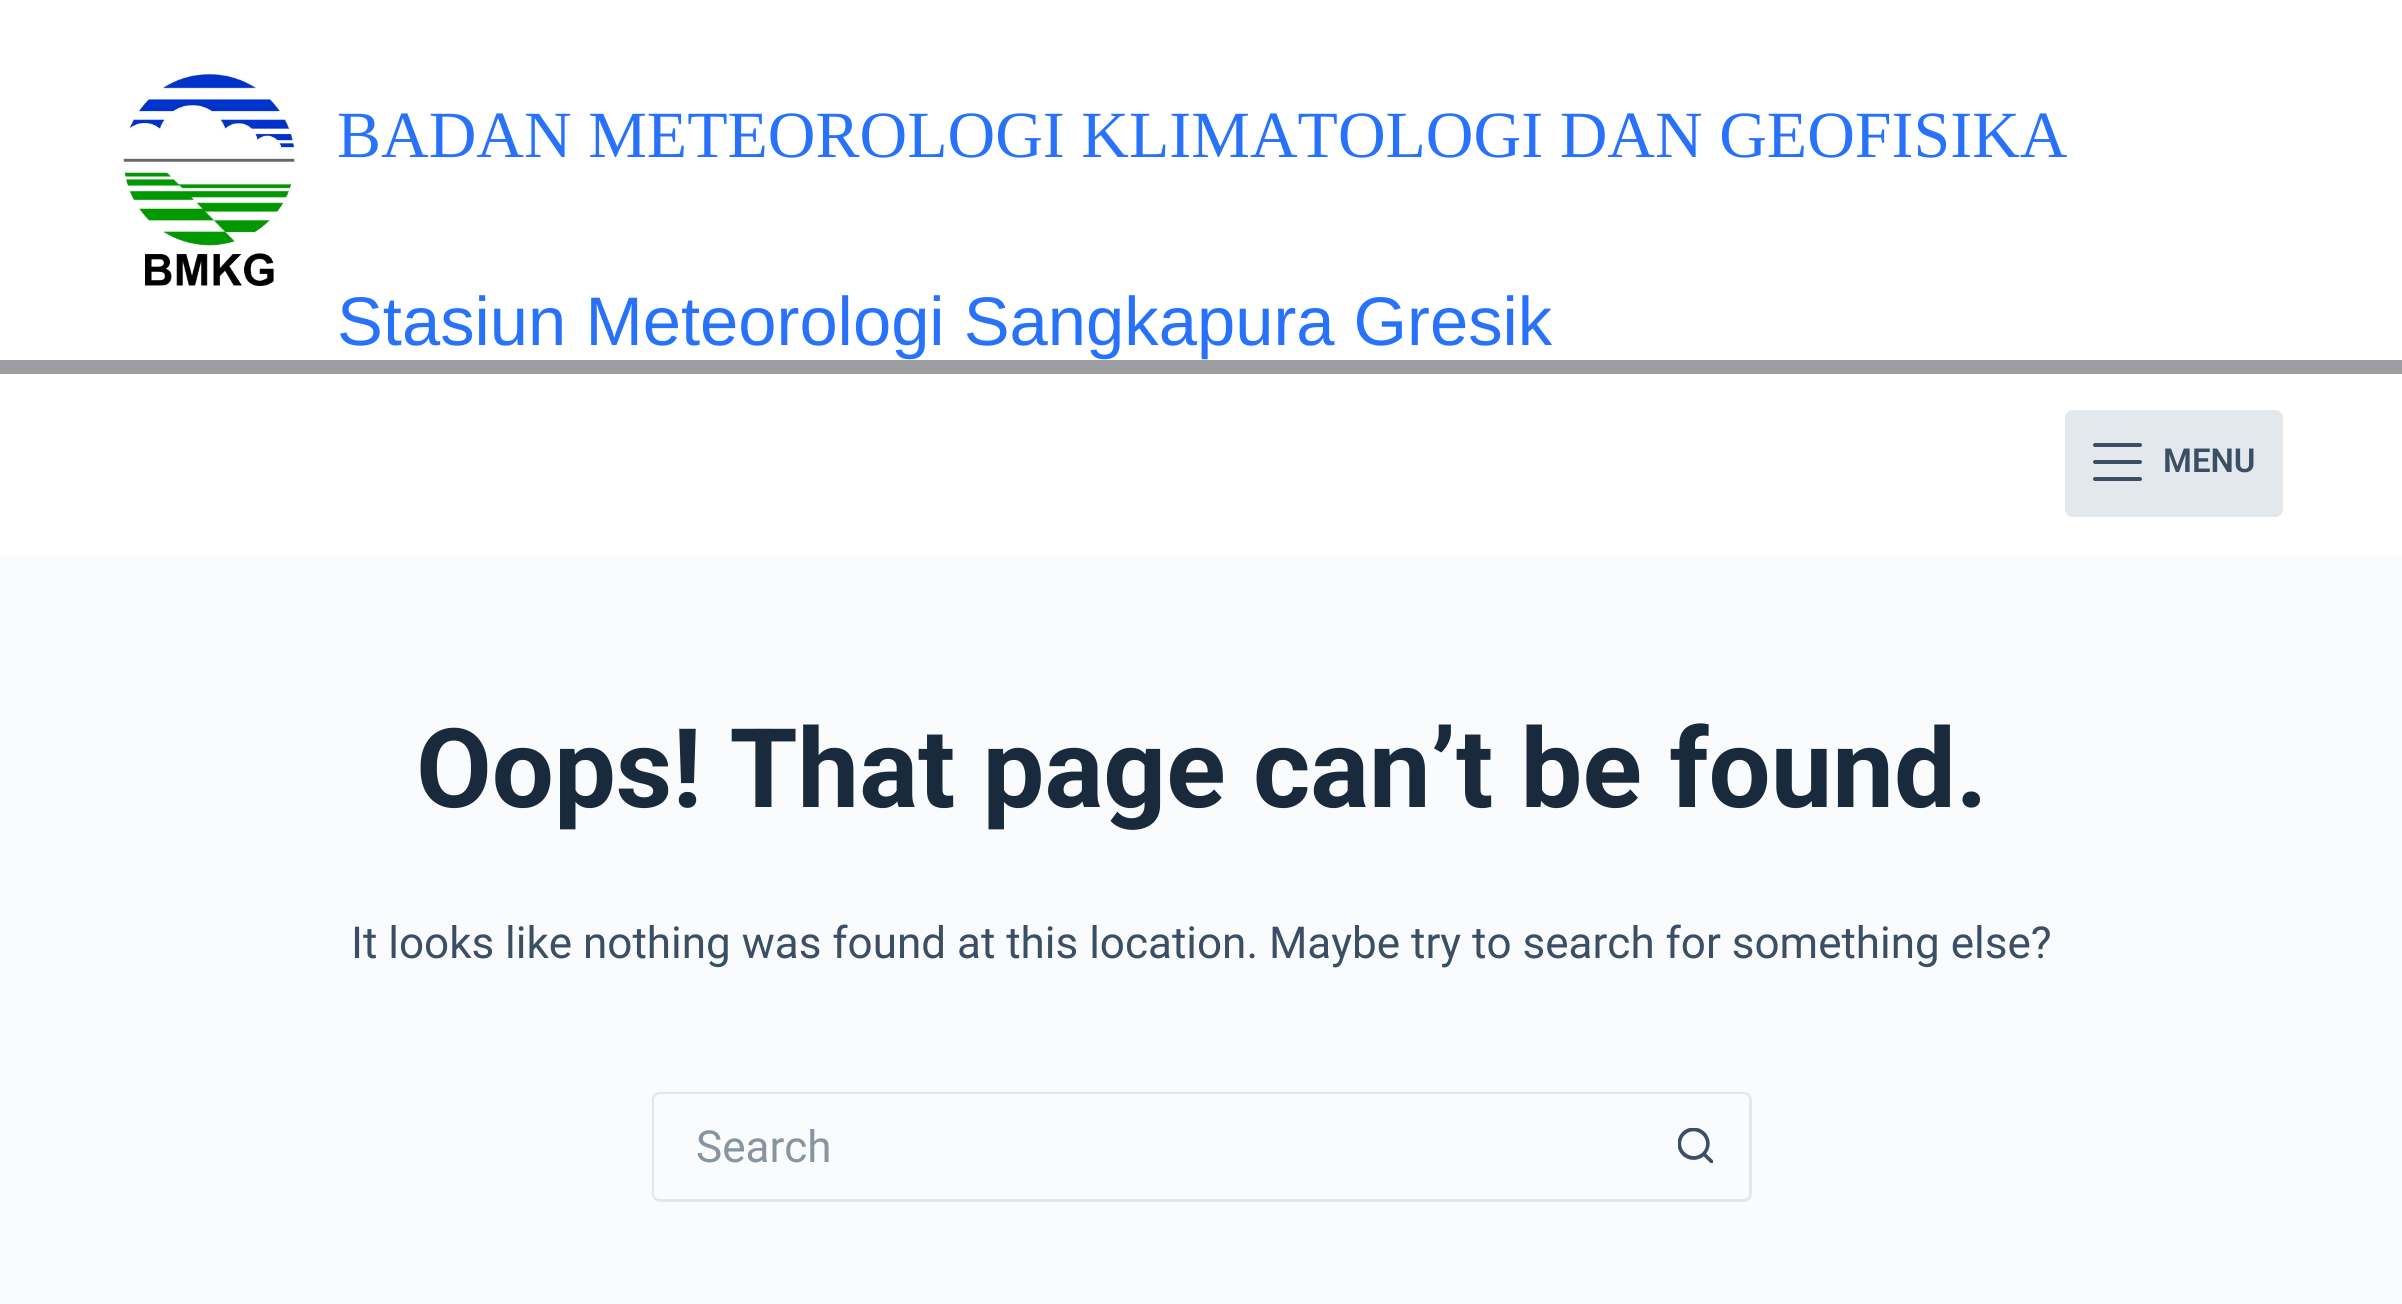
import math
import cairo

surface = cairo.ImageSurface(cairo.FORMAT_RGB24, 2402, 1304)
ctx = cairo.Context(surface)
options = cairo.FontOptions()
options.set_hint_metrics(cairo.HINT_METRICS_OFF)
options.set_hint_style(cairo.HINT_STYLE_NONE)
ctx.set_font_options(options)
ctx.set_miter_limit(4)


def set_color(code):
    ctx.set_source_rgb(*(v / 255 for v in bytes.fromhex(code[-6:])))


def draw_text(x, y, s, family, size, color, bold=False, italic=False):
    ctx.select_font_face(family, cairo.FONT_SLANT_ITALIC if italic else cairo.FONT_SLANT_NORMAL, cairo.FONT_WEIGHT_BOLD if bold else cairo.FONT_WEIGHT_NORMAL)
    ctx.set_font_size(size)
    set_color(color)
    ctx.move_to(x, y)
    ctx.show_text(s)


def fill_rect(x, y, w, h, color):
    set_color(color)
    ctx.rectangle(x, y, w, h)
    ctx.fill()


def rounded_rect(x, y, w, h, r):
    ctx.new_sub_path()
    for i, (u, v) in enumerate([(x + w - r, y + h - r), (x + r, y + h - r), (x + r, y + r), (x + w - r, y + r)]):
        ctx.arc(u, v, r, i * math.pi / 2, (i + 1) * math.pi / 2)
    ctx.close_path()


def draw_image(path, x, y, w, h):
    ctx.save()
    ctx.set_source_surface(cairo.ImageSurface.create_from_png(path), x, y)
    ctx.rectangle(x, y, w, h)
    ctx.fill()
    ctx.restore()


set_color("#fafbfc")
ctx.paint()
fill_rect(0, 0, 2402, 360, "#ffffff")
fill_rect(0, 360, 2402, 14, "#9d9ea1")
draw_image("assets/img1.png", 123, 74, 172, 212)
draw_text(337, 157, "BADAN METEOROLOGI KLIMATOLOGI DAN GEOFISIKA", "Liberation Serif", 66, "#2872fa")
draw_text(337, 345, "Stasiun Meteorologi Sangkapura Gresik", "Liberation Sans", 68.75, "#2872fa")
fill_rect(0, 374, 2402, 182, "#ffffff")
set_color("#e3e8ed")
rounded_rect(2065, 410, 218, 107, 8)
ctx.fill()
set_color("#3a4f66")
rounded_rect(2093, 443, 49, 4, 2)
ctx.fill()
rounded_rect(2093, 460, 49, 4, 2)
ctx.fill()
rounded_rect(2093, 477, 49, 4, 2)
ctx.fill()
draw_text(2163, 472, "MENU", "Roboto SemiBold", 33, "#3a4f66")
draw_text(416, 807, "Oops! That page can’t be found.", "Roboto", 110, "#192a3d", bold=True)
draw_text(351, 958, "It looks like nothing was found at this location. Maybe try to search for something else?", "Roboto", 44, "#3a4f66")
set_color("#e1e8ed")
ctx.set_fill_rule(cairo.FILL_RULE_EVEN_ODD)
ctx.new_path()
ctx.move_to(660, 1092)
ctx.line_to(1642, 1092)
ctx.line_to(1642, 1202)
ctx.line_to(660, 1202)
ctx.curve_to(655, 1202, 652, 1198, 652, 1194)
ctx.line_to(652, 1100)
ctx.curve_to(652, 1095, 655, 1092, 660, 1092)
ctx.close_path()
ctx.move_to(660, 1094)
ctx.line_to(1642, 1094)
ctx.line_to(1642, 1199)
ctx.line_to(660, 1199)
ctx.curve_to(657, 1199, 654, 1197, 654, 1194)
ctx.line_to(654, 1100)
ctx.curve_to(654, 1097, 657, 1094, 660, 1094)
ctx.close_path()
ctx.fill()
draw_text(696, 1162, "Search", "Roboto", 44, "#8794a2")
set_color("#e1e8ed")
ctx.new_path()
ctx.move_to(1642, 1092)
ctx.line_to(1744, 1092)
ctx.curve_to(1748, 1092, 1752, 1095, 1752, 1100)
ctx.line_to(1752, 1194)
ctx.curve_to(1752, 1198, 1748, 1202, 1744, 1202)
ctx.line_to(1642, 1202)
ctx.close_path()
ctx.move_to(1642, 1094)
ctx.line_to(1744, 1094)
ctx.curve_to(1747, 1094, 1749, 1097, 1749, 1100)
ctx.line_to(1749, 1194)
ctx.curve_to(1749, 1197, 1747, 1199, 1744, 1199)
ctx.line_to(1642, 1199)
ctx.close_path()
ctx.fill()
draw_image("assets/img2.png", 1678, 1128, 35, 35)
surface.write_to_png("output.png")
